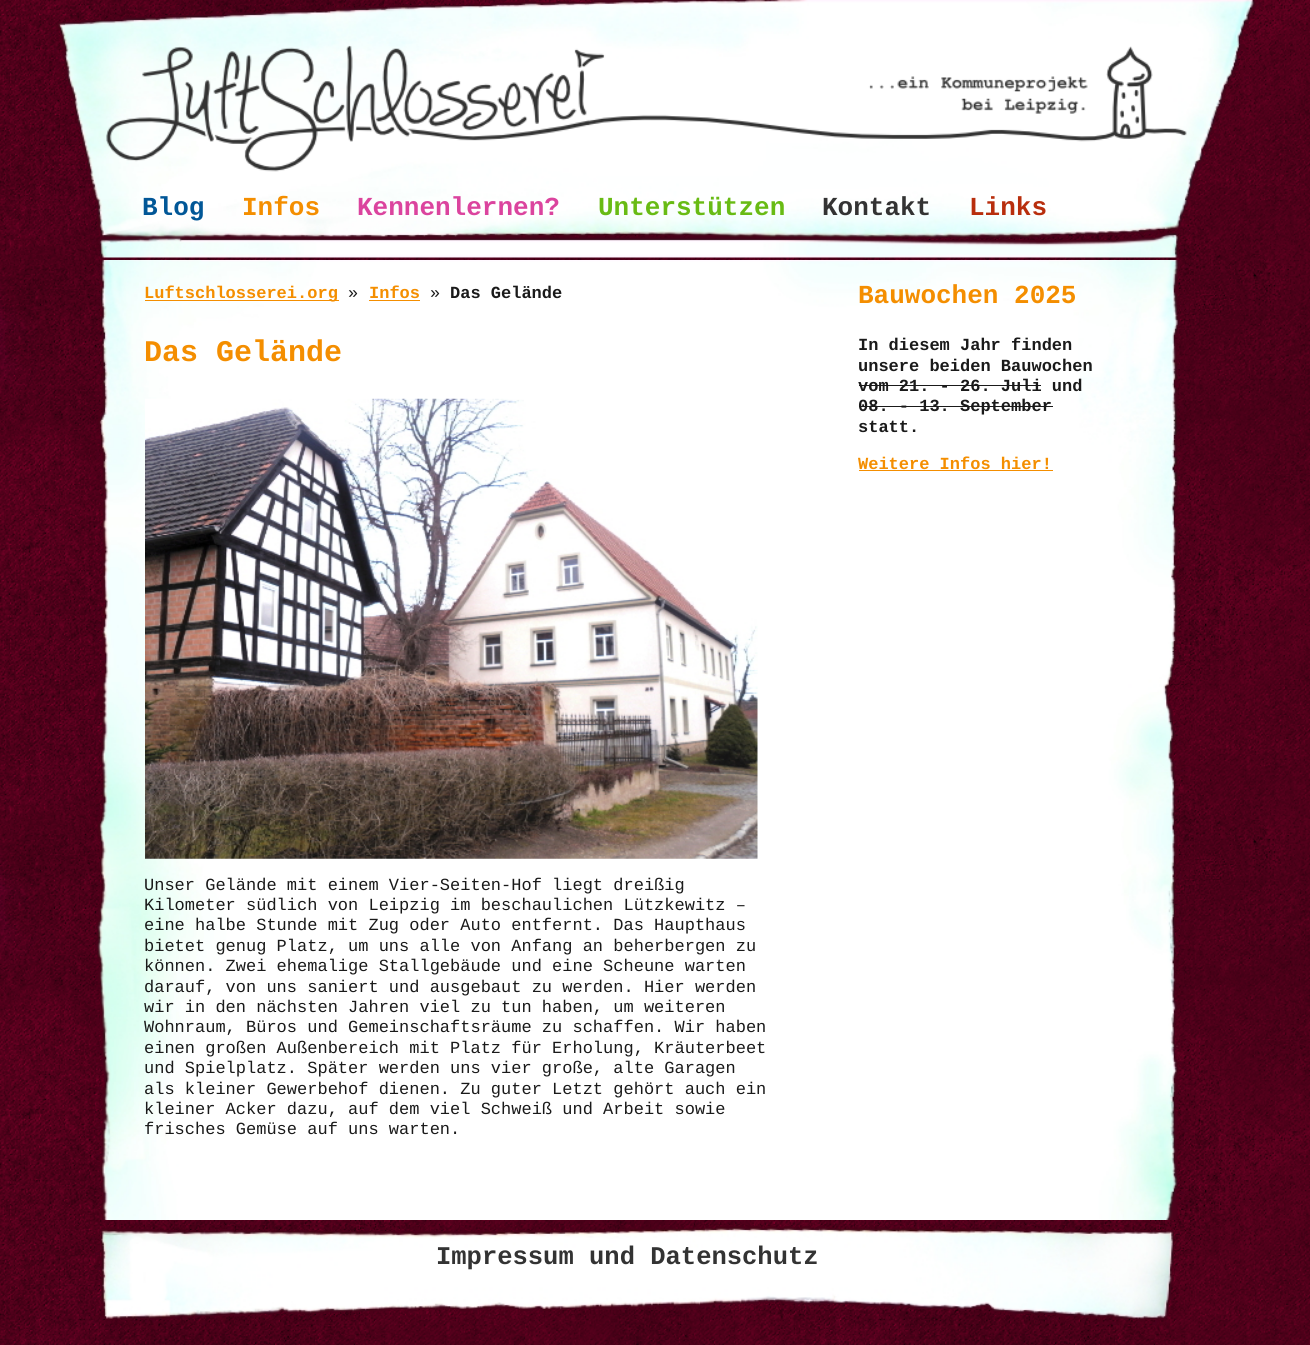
import math
import cairo

surface = cairo.ImageSurface(cairo.FORMAT_RGB24, 1310, 1345)
ctx = cairo.Context(surface)
options = cairo.FontOptions()
options.set_hint_metrics(cairo.HINT_METRICS_OFF)
options.set_hint_style(cairo.HINT_STYLE_NONE)
ctx.set_font_options(options)
ctx.set_miter_limit(4)


def set_color(code):
    ctx.set_source_rgb(*(v / 255 for v in bytes.fromhex(code[-6:])))


def draw_text(x, y, s, family, size, color, bold=False, italic=False):
    ctx.select_font_face(family, cairo.FONT_SLANT_ITALIC if italic else cairo.FONT_SLANT_NORMAL, cairo.FONT_WEIGHT_BOLD if bold else cairo.FONT_WEIGHT_NORMAL)
    ctx.set_font_size(size)
    set_color(color)
    ctx.move_to(x, y)
    ctx.show_text(s)


def fill_rect(x, y, w, h, color):
    set_color(color)
    ctx.rectangle(x, y, w, h)
    ctx.fill()


def draw_image(path, x, y, w, h):
    ctx.save()
    ctx.set_source_surface(cairo.ImageSurface.create_from_png(path), x, y)
    ctx.rectangle(x, y, w, h)
    ctx.fill()
    ctx.restore()


set_color("#ffffff")
ctx.paint()
draw_image("assets/img1.png", 0, 0, 1310, 1345)
draw_image("assets/img2.png", 49, 0, 1214, 258)
draw_text(142, 215, "Blog", "Liberation Mono", 26, "#015797", bold=True)
draw_text(242, 215, "Infos", "Liberation Mono", 26, "#f48e00", bold=True)
draw_text(357, 215, "Kennenlernen?", "Liberation Mono", 26, "#db449e", bold=True)
draw_text(598, 215, "Unterstützen", "Liberation Mono", 26, "#68bb14", bold=True)
draw_text(822, 215, "Kontakt", "Liberation Mono", 26, "#333333", bold=True)
draw_text(969, 215, "Links", "Liberation Mono", 26, "#b82e0d", bold=True)
draw_image("assets/img3.png", 96, 260, 1103, 960)
fill_rect(145, 300, 194, 1, "#f48e00")
draw_text(144, 298, "Luftschlosserei.org", "Liberation Mono", 17, "#f48e00", bold=True)
draw_text(348, 298, "»", "Liberation Mono", 17, "#1a1a1a")
draw_text(369, 298, "Infos", "Liberation Mono", 17, "#f48e00", bold=True)
fill_rect(369, 300, 51, 1, "#f48e00")
draw_text(430, 298, "»", "Liberation Mono", 17, "#1a1a1a")
draw_text(450, 298, "Das Gelände", "Liberation Mono", 17, "#1a1a1a", bold=True)
draw_text(144, 361, "Das Gelände", "Liberation Mono", 30, "#f48e00", bold=True)
draw_image("assets/img4.png", 145, 398, 613, 461)
draw_text(144, 890, "Unser Gelände mit einem Vier-Seiten-Hof liegt dreißig", "Liberation Mono", 17, "#1a1a1a")
draw_text(144, 910, "Kilometer südlich von Leipzig im beschaulichen Lützkewitz –", "Liberation Mono", 17, "#1a1a1a")
draw_text(144, 930, "eine halbe Stunde mit Zug oder Auto entfernt. Das Haupthaus", "Liberation Mono", 17, "#1a1a1a")
draw_text(144, 951, "bietet genug Platz, um uns alle von Anfang an beherbergen zu", "Liberation Mono", 17, "#1a1a1a")
draw_text(144, 971, "können. Zwei ehemalige Stallgebäude und eine Scheune warten", "Liberation Mono", 17, "#1a1a1a")
draw_text(144, 992, "darauf, von uns saniert und ausgebaut zu werden. Hier werden", "Liberation Mono", 17, "#1a1a1a")
draw_text(144, 1012, "wir in den nächsten Jahren viel zu tun haben, um weiteren", "Liberation Mono", 17, "#1a1a1a")
draw_text(144, 1032, "Wohnraum, Büros und Gemeinschaftsräume zu schaffen. Wir haben", "Liberation Mono", 17, "#1a1a1a")
draw_text(144, 1053, "einen großen Außenbereich mit Platz für Erholung, Kräuterbeet", "Liberation Mono", 17, "#1a1a1a")
draw_text(144, 1073, "und Spielplatz. Später werden uns vier große, alte Garagen", "Liberation Mono", 17, "#1a1a1a")
draw_text(144, 1094, "als kleiner Gewerbehof dienen. Zu guter Letzt gehört auch ein", "Liberation Mono", 17, "#1a1a1a")
draw_text(144, 1114, "kleiner Acker dazu, auf dem viel Schweiß und Arbeit sowie", "Liberation Mono", 17, "#1a1a1a")
draw_text(144, 1134, "frisches Gemüse auf uns warten.", "Liberation Mono", 17, "#1a1a1a")
draw_text(858, 303, "Bauwochen 2025", "Liberation Mono", 26, "#f48e00", bold=True)
draw_text(858, 350, "In diesem Jahr finden", "Liberation Mono", 17, "#1a1a1a", bold=True)
draw_text(858, 371, "unsere beiden Bauwochen", "Liberation Mono", 17, "#1a1a1a", bold=True)
draw_text(858, 391, "vom 21. - 26. Juli und", "Liberation Mono", 17, "#1a1a1a", bold=True)
fill_rect(859, 385, 182, 1, "#1a1a1a")
draw_text(858, 411, "08. - 13. September", "Liberation Mono", 17, "#1a1a1a", bold=True)
fill_rect(859, 406, 194, 1, "#1a1a1a")
draw_text(858, 432, "statt.", "Liberation Mono", 17, "#1a1a1a", bold=True)
draw_text(858, 469, "Weitere Infos hier!", "Liberation Mono", 17, "#f48e00", bold=True)
fill_rect(859, 470, 194, 1, "#f48e00")
draw_image("assets/img5.png", 92, 1226, 1082, 101)
draw_text(436, 1264, "Impressum und Datenschutz", "Liberation Mono", 25.5, "#333333", bold=True)
surface.write_to_png("output.png")
